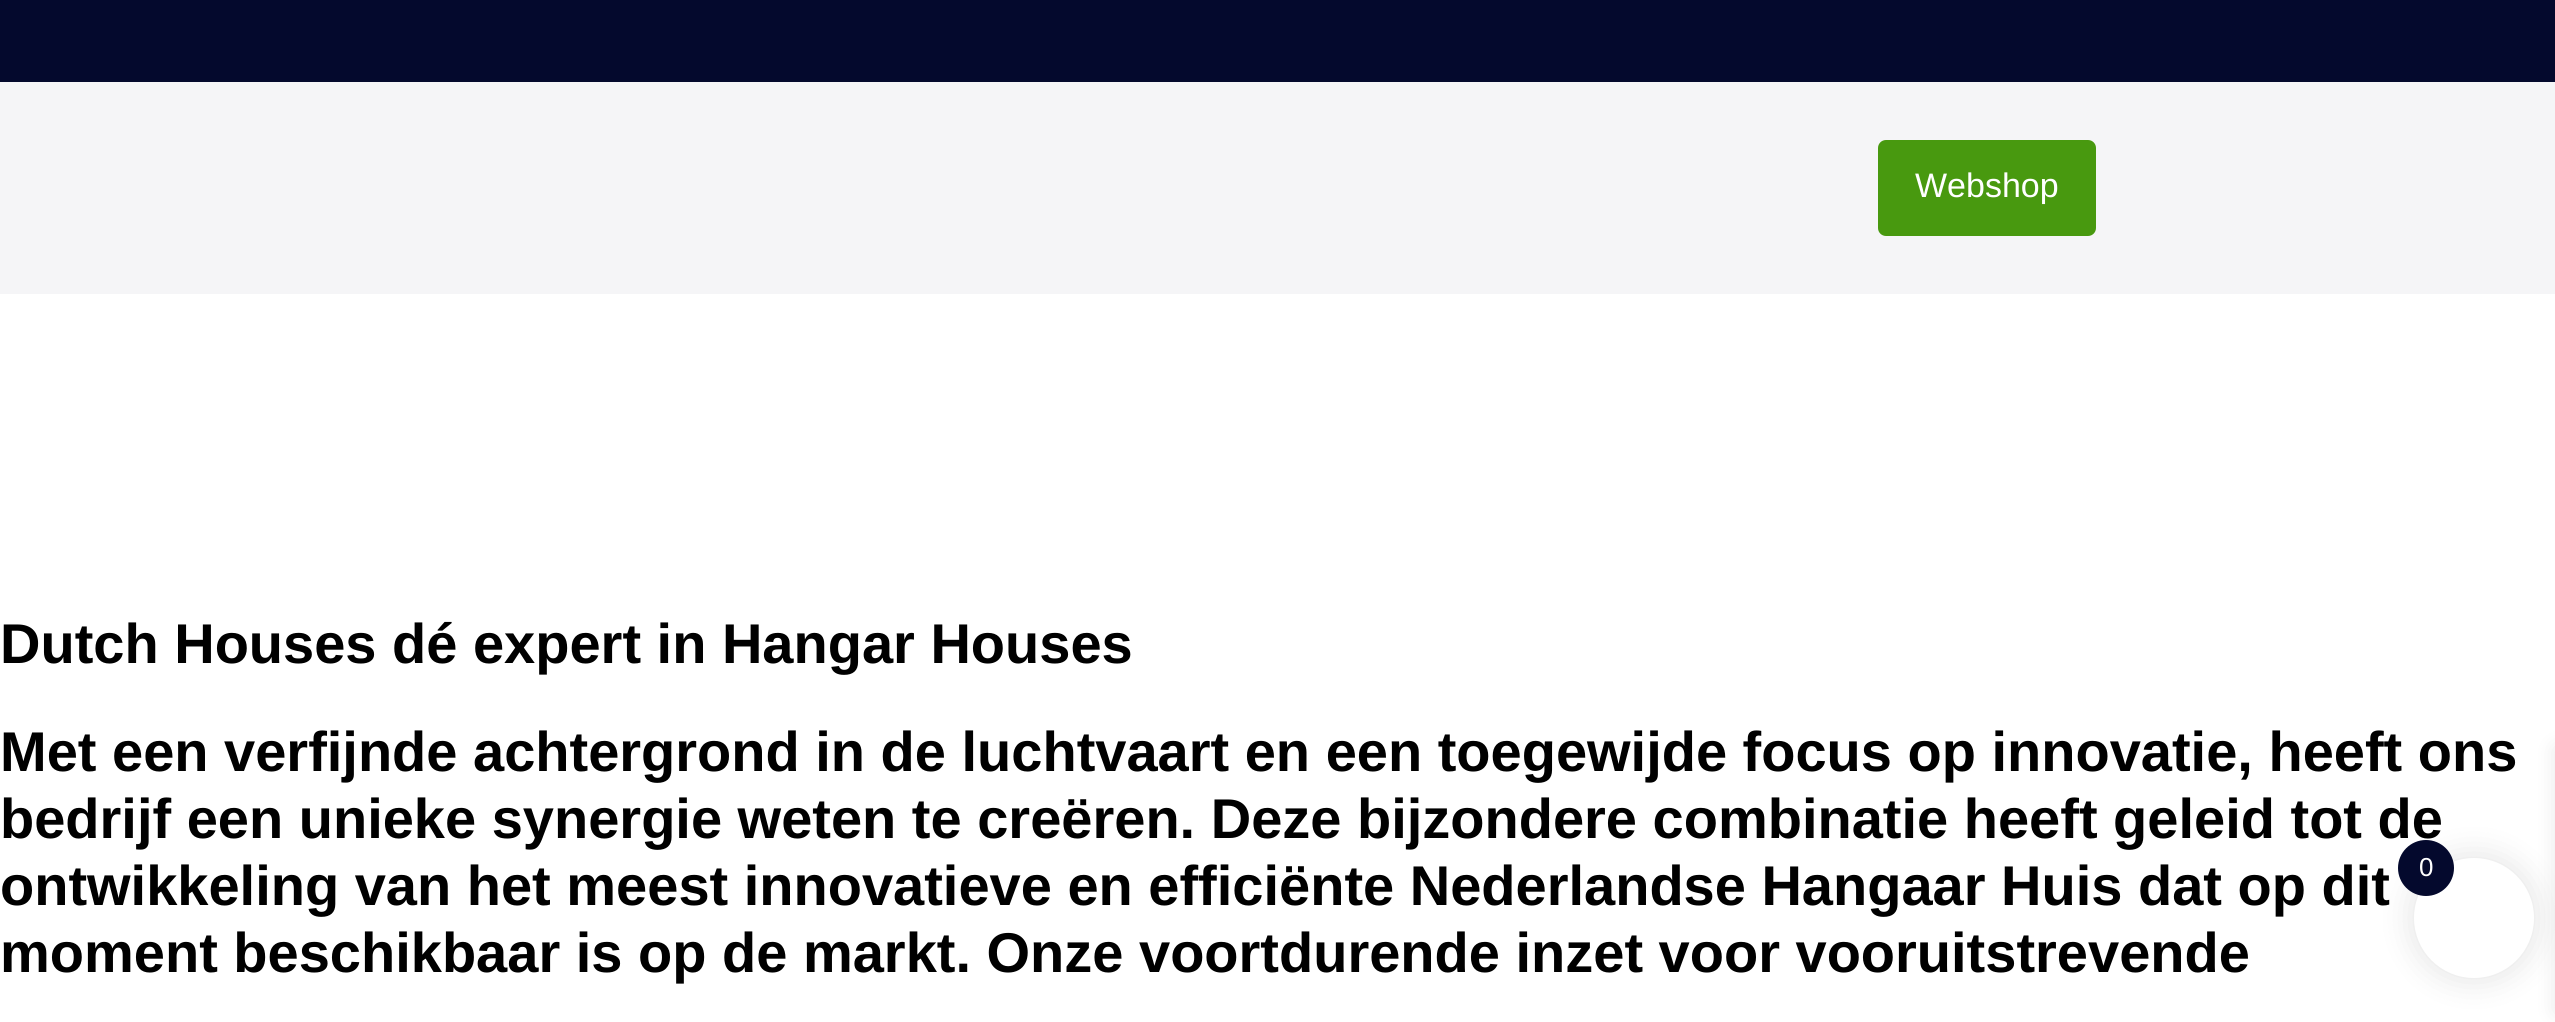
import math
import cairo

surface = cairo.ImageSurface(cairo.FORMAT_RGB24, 2555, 1022)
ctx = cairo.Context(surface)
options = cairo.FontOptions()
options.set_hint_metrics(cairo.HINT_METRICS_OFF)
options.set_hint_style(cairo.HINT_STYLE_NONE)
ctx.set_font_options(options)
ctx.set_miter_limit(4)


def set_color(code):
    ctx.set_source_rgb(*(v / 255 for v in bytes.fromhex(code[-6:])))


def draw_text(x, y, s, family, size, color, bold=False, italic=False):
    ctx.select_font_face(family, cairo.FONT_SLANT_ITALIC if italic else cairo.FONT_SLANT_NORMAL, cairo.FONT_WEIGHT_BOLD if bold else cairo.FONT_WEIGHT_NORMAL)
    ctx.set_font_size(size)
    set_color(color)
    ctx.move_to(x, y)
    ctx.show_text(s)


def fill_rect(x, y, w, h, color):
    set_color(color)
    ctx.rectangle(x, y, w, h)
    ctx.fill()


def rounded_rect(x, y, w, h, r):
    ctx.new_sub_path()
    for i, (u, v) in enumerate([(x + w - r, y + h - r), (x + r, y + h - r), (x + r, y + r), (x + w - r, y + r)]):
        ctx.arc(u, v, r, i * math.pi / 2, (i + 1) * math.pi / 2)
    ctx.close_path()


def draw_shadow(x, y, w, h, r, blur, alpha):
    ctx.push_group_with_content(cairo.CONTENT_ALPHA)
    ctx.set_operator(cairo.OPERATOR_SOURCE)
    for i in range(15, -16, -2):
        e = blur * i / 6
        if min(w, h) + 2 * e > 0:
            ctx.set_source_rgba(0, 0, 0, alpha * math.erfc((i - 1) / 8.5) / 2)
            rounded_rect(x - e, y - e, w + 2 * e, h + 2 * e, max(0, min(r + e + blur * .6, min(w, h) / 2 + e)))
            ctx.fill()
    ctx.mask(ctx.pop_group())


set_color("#ffffff")
ctx.paint()
fill_rect(0, 0, 2555, 82, "#04092d")
fill_rect(0, 82, 2555, 212, "#f5f5f7")
set_color("#48990f")
rounded_rect(1878, 140, 218, 96, 8)
ctx.fill()
draw_text(1915, 197, "Webshop", "Liberation Sans", 34, "#ffffff")
draw_text(0, 663, "Dutch Houses dé expert in Hangar Houses", "Liberation Sans", 56, "#000000", bold=True)
draw_text(0, 771, "Met een verfijnde achtergrond in de luchtvaart en een toegewijde focus op innovatie, heeft ons", "Liberation Sans", 56, "#000000", bold=True)
draw_text(0, 838, "bedrijf een unieke synergie weten te creëren. Deze bijzondere combinatie heeft geleid tot de", "Liberation Sans", 56, "#000000", bold=True)
draw_text(0, 905, "ontwikkeling van het meest innovatieve en efficiënte Nederlandse Hangaar Huis dat op dit", "Liberation Sans", 56, "#000000", bold=True)
draw_text(0, 972, "moment beschikbaar is op de markt. Onze voortdurende inzet voor vooruitstrevende", "Liberation Sans", 56, "#000000", bold=True)
set_color("#000000")
draw_shadow(2410, 854, 128, 128, 64, 15, 0.1)
draw_shadow(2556, 748, 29, 264, 0, 10, 0.1)
set_color("#ffffff")
ctx.arc(2474, 918, 60, 0, 2 * math.pi)
ctx.fill()
set_color("#04092d")
ctx.arc(2426, 868, 28, 0, 2 * math.pi)
ctx.fill()
draw_text(2419, 876, "0", "Liberation Sans", 26, "#ffffff")
surface.write_to_png("output.png")
